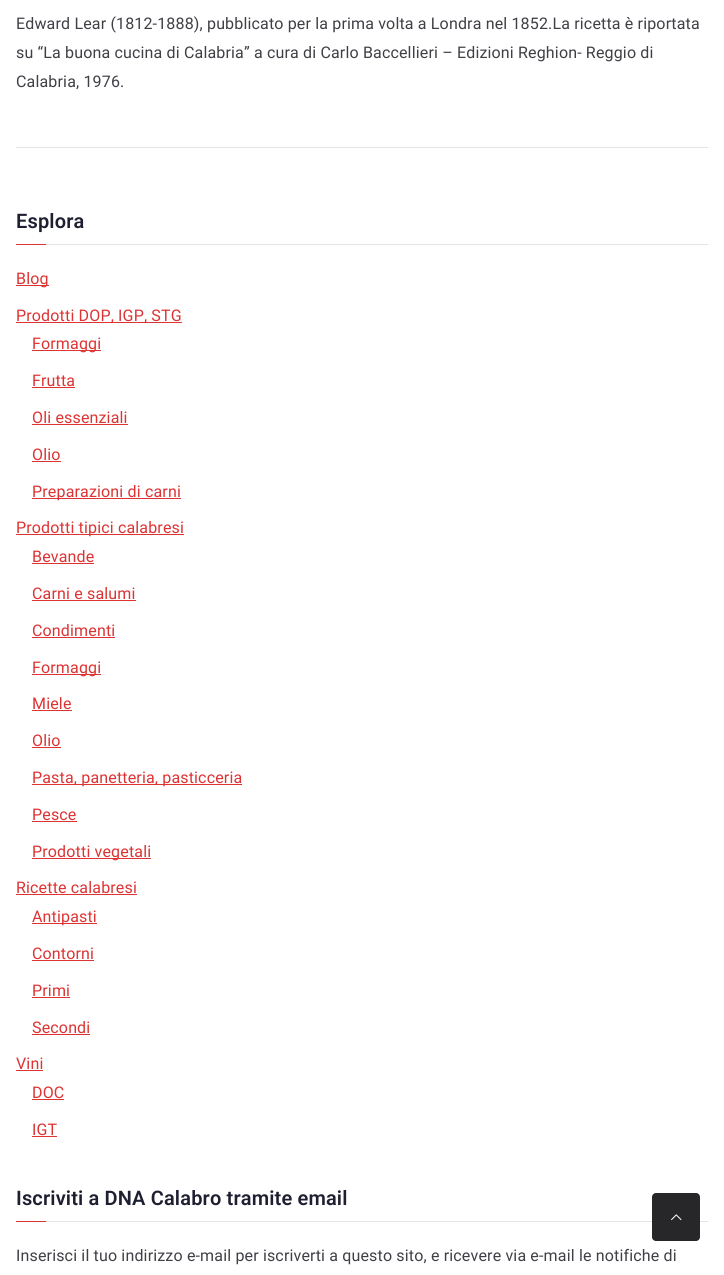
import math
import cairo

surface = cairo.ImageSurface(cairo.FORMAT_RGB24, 724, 1275)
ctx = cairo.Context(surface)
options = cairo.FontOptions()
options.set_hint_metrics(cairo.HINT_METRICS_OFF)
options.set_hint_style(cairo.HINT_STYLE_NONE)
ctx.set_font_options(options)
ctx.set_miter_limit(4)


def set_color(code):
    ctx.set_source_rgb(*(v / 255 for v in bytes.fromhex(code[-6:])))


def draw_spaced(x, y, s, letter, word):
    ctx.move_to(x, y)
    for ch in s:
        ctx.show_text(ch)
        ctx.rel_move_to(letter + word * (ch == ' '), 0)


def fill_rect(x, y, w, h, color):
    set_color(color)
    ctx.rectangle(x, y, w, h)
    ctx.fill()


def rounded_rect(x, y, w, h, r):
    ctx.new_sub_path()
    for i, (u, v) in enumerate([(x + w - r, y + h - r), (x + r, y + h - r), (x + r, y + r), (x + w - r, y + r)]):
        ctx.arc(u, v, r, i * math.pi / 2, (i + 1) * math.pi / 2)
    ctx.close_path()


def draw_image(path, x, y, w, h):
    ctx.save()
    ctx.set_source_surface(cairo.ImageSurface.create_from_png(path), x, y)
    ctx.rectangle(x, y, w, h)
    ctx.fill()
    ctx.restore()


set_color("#ffffff")
ctx.paint()
fill_rect(16, 147, 692, 1, "#e4e4e7")
ctx.select_font_face("Roboto")
ctx.set_font_size(16)
set_color("#3f3f46")
draw_spaced(16, 29, "Edward Lear (1812-1888), pubblicato per la prima volta a Londra nel 1852.La ricetta è riportata", 0.16, 0)
draw_spaced(16, 58, "su “La buona cucina di Calabria” a cura di Carlo Baccellieri – Edizioni Reghion- Reggio di", 0.16, 0)
draw_spaced(16, 87, "Calabria, 1976.", 0.16, 0)
fill_rect(46, 244, 662, 1, "#e4e4e7")
ctx.select_font_face("Roboto SemiBold")
ctx.set_font_size(20)
set_color("#1f1f32")
draw_spaced(16, 228, "Esplora", 0.16, 0)
fill_rect(16, 244, 30, 1, "#dd3333")
fill_rect(16, 285, 33, 1, "#dd3333")
ctx.select_font_face("Roboto")
ctx.set_font_size(16)
draw_spaced(16, 284, "Blog", 0.16, 0)
fill_rect(16, 322, 166, 1, "#dd3333")
draw_spaced(16, 321, "Prodotti DOP, IGP, STG", 0.16, 0)
fill_rect(32, 350, 69, 1, "#dd3333")
draw_spaced(32, 349, "Formaggi", 0.16, 0)
draw_spaced(32, 386, "Frutta", 0.16, 0)
fill_rect(32, 387, 43, 1, "#dd3333")
draw_spaced(32, 423, "Oli essenziali", 0.16, 0)
fill_rect(32, 424, 96, 1, "#dd3333")
draw_spaced(32, 460, "Olio", 0.16, 0)
fill_rect(32, 461, 29, 1, "#dd3333")
fill_rect(32, 498, 149, 1, "#dd3333")
draw_spaced(32, 497, "Preparazioni di carni", 0.16, 0)
fill_rect(16, 534, 168, 1, "#dd3333")
draw_spaced(16, 533, "Prodotti tipici calabresi", 0.16, 0)
draw_spaced(32, 562, "Bevande", 0.16, 0)
fill_rect(32, 563, 62, 1, "#dd3333")
draw_spaced(32, 599, "Carni e salumi", 0.16, 0)
fill_rect(32, 600, 104, 1, "#dd3333")
draw_spaced(32, 636, "Condimenti", 0.16, 0)
fill_rect(32, 637, 83, 1, "#dd3333")
fill_rect(32, 674, 69, 1, "#dd3333")
draw_spaced(32, 673, "Formaggi", 0.16, 0)
draw_spaced(32, 709, "Miele", 0.16, 0)
fill_rect(32, 710, 40, 1, "#dd3333")
draw_spaced(32, 746, "Olio", 0.16, 0)
fill_rect(32, 747, 29, 1, "#dd3333")
fill_rect(32, 784, 210, 1, "#dd3333")
draw_spaced(32, 783, "Pasta, panetteria, pasticceria", 0.16, 0)
draw_spaced(32, 820, "Pesce", 0.16, 0)
fill_rect(32, 821, 45, 1, "#dd3333")
fill_rect(32, 858, 119, 1, "#dd3333")
draw_spaced(32, 857, "Prodotti vegetali", 0.16, 0)
draw_spaced(16, 893, "Ricette calabresi", 0.16, 0)
fill_rect(16, 894, 121, 1, "#dd3333")
fill_rect(32, 923, 65, 1, "#dd3333")
draw_spaced(32, 922, "Antipasti", 0.16, 0)
draw_spaced(32, 959, "Contorni", 0.16, 0)
fill_rect(32, 960, 62, 1, "#dd3333")
draw_spaced(32, 996, "Primi", 0.16, 0)
fill_rect(32, 997, 38, 1, "#dd3333")
draw_spaced(32, 1033, "Secondi", 0.16, 0)
fill_rect(32, 1034, 58, 1, "#dd3333")
draw_spaced(16, 1069, "Vini", 0.16, 0)
fill_rect(16, 1070, 27, 1, "#dd3333")
draw_spaced(32, 1098, "DOC", 0.16, 0)
fill_rect(32, 1099, 32, 1, "#dd3333")
draw_spaced(32, 1135, "IGT", 0.16, 0)
fill_rect(32, 1136, 25, 1, "#dd3333")
fill_rect(46, 1221, 662, 1, "#e4e4e7")
ctx.select_font_face("Roboto SemiBold")
ctx.set_font_size(20)
set_color("#1f1f32")
draw_spaced(16, 1205, "Iscriviti a DNA Calabro tramite email", 0.16, 0)
fill_rect(16, 1221, 30, 1, "#dd3333")
ctx.select_font_face("Roboto")
ctx.set_font_size(16)
set_color("#3f3f46")
draw_spaced(16, 1261, "Inserisci il tuo indirizzo e-mail per iscriverti a questo sito, e ricevere via e-mail le notifiche di", 0.16, 0)
set_color("#27272a")
rounded_rect(652, 1193, 48, 48, 4)
ctx.fill()
draw_image("assets/img1.png", 671, 1214, 11, 7)
surface.write_to_png("output.png")
